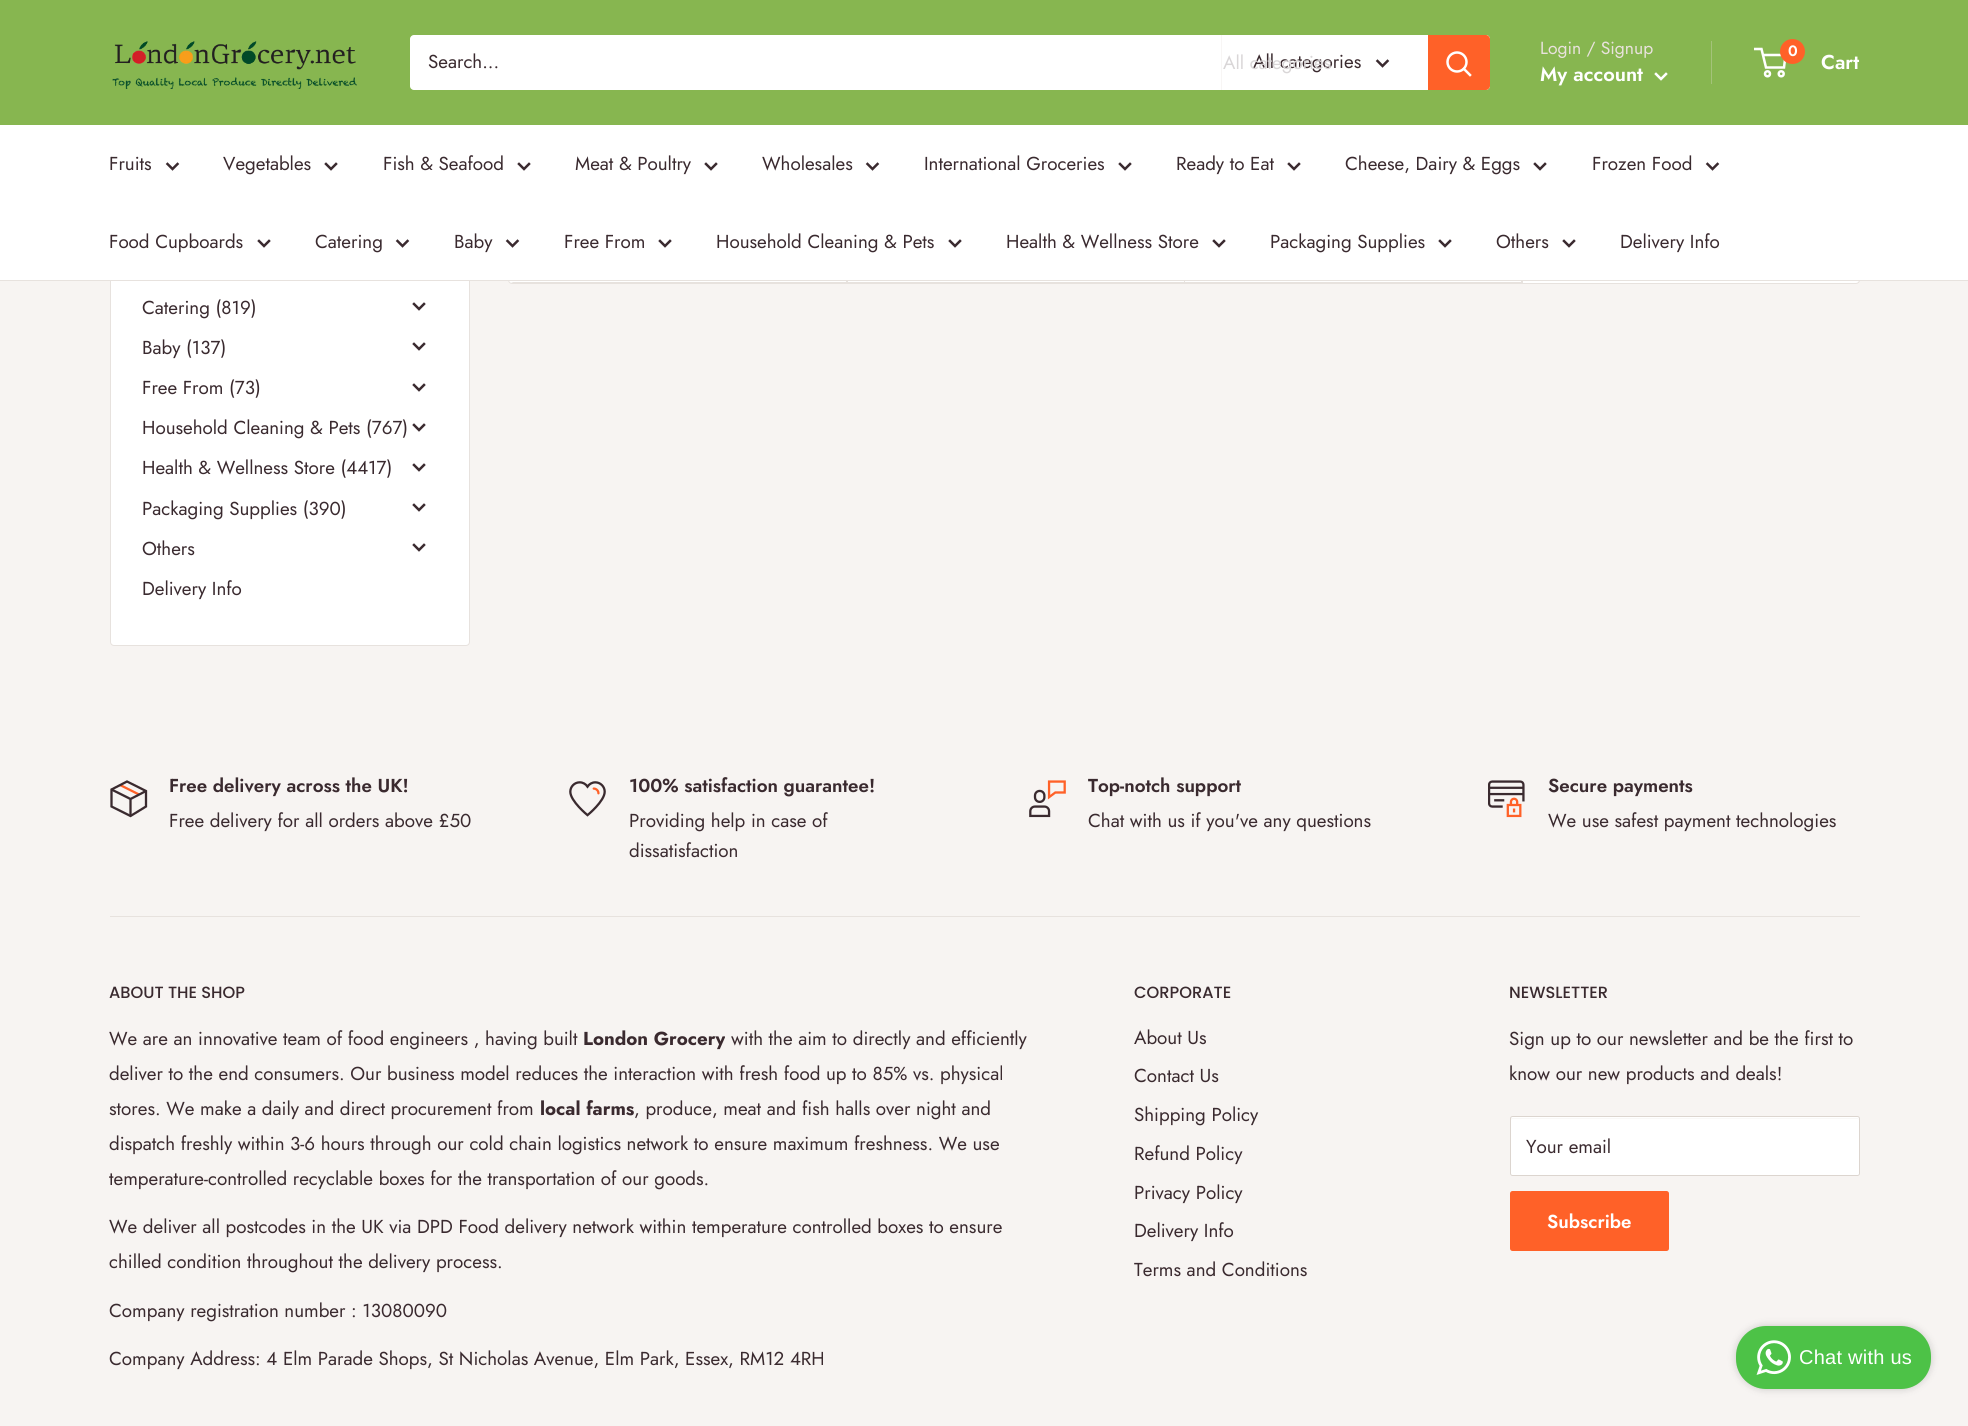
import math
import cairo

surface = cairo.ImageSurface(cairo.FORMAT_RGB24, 1968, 1426)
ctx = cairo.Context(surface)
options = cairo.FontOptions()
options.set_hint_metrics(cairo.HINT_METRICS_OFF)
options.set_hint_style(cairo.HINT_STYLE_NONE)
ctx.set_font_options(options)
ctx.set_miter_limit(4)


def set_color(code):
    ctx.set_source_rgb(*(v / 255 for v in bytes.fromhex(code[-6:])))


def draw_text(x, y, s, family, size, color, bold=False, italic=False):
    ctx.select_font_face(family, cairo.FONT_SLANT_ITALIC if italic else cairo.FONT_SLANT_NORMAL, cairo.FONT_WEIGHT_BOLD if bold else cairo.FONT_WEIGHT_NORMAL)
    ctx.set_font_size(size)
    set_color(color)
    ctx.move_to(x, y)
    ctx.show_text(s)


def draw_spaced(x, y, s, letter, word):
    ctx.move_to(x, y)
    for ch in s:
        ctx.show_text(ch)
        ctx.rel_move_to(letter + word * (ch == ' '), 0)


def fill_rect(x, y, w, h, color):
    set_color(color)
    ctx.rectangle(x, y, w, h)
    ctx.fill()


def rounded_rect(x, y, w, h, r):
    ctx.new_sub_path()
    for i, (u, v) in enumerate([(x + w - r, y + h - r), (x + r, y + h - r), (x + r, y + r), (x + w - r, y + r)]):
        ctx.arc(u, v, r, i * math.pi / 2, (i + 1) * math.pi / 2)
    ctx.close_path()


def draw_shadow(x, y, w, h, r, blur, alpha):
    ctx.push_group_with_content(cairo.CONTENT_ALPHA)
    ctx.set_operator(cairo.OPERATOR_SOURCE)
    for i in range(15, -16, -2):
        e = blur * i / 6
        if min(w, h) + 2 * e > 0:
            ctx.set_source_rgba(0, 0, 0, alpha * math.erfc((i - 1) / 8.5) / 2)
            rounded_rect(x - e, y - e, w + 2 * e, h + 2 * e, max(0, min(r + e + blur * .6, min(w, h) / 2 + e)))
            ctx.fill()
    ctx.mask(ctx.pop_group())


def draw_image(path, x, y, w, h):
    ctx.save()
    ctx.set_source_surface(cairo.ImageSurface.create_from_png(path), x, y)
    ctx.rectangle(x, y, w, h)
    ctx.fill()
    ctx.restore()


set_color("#f7f4f2")
ctx.paint()
set_color("#ffffff")
rounded_rect(508.5, -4.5, 1351, 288, 3.5)
ctx.fill_preserve()
set_color("#e7e2de")
ctx.set_line_width(1)
ctx.stroke()
ctx.new_path()
ctx.move_to(513, -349)
ctx.line_to(848, -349)
ctx.line_to(848, 283)
ctx.line_to(513, 283)
ctx.line_to(511, 282)
ctx.line_to(846, 282)
ctx.line_to(846, -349)
ctx.line_to(512, -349)
ctx.close_path()
ctx.fill()
ctx.new_path()
ctx.move_to(846, -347)
ctx.line_to(846, 283)
ctx.line_to(1184, 283)
ctx.line_to(1184, -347)
ctx.line_to(1184, 282)
ctx.line_to(846, 282)
ctx.close_path()
ctx.fill()
ctx.new_path()
ctx.move_to(848, -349)
ctx.line_to(1185, -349)
ctx.line_to(1185, 283)
ctx.line_to(848, 283)
ctx.line_to(848, 282)
ctx.line_to(1184, 282)
ctx.line_to(1184, -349)
ctx.close_path()
ctx.fill()
ctx.new_path()
ctx.move_to(1185, -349)
ctx.line_to(1523, -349)
ctx.line_to(1523, 283)
ctx.line_to(1185, 283)
ctx.line_to(1185, 282)
ctx.line_to(1521, 282)
ctx.line_to(1521, -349)
ctx.close_path()
ctx.fill()
set_color("#ffffff")
rounded_rect(110.5, -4.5, 359, 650, 3.5)
ctx.fill_preserve()
set_color("#e7e2de")
ctx.stroke()
fill_rect(0, 0, 1968, 125, "#87b650")
draw_image("assets/img1.png", 112, 41, 245, 48)
set_color("#ffffff")
rounded_rect(410, 35, 1080, 55, 4)
ctx.fill()
draw_text(428, 68, "Search...", "Jost", 18.75, "#3a2a2f")
fill_rect(1221, 35, 1, 55, "#f8f6f5")
draw_text(1253, 68, "All categories", "Jost", 18.75, "#3a2a2f")
ctx.new_path()
ctx.move_to(1387.5, 61)
ctx.line_to(1382.5, 66)
ctx.line_to(1377.5, 61)
ctx.set_line_width(2.5)
ctx.set_line_cap(cairo.LINE_CAP_SQUARE)
ctx.stroke()
draw_text(1223, 69, "All categories", "Jost", 18.75, "#d9d6d7")
set_color("#ff6128")
ctx.new_path()
ctx.move_to(1428, 35)
ctx.line_to(1486, 35)
ctx.curve_to(1488, 35, 1490, 37, 1490, 39)
ctx.line_to(1490, 86)
ctx.curve_to(1490, 88, 1488, 90, 1486, 90)
ctx.line_to(1428, 90)
ctx.close_path()
ctx.fill()
ctx.new_path()
ctx.move_to(1470, 75)
ctx.line_to(1464, 69)
set_color("#ffffff")
ctx.stroke()
ctx.arc(1457, 62, 9.5, 0, 2 * math.pi)
ctx.set_line_cap(cairo.LINE_CAP_BUTT)
ctx.stroke()
draw_text(1540, 54, "Login / Signup", "Jost", 17.5, "#e9e2dd")
fill_rect(1711, 41, 1, 43, "#a4c37a")
draw_text(1540, 81, "My account", "Jost SemiBold", 20, "#ffffff")
ctx.new_path()
ctx.move_to(1666, 74)
ctx.line_to(1661, 79)
ctx.line_to(1656, 74)
ctx.set_line_cap(cairo.LINE_CAP_SQUARE)
ctx.stroke()
ctx.arc(1767.5, 73.8, 2.5, 0, 2 * math.pi)
ctx.set_line_cap(cairo.LINE_CAP_BUTT)
ctx.stroke()
ctx.arc(1781.2, 73.8, 2.5, 0, 2 * math.pi)
ctx.stroke()
ctx.new_path()
ctx.move_to(1763, 55)
ctx.line_to(1785.5, 55)
ctx.line_to(1784, 67.5)
ctx.line_to(1766, 67.5)
ctx.line_to(1761.5, 49)
ctx.line_to(1754, 49)
ctx.stroke()
set_color("#ff6128")
ctx.arc(1792.5, 51.5, 12.5, 0, 2 * math.pi)
ctx.fill()
draw_text(1788, 56, "0", "Jost SemiBold", 15, "#ffffff")
draw_text(1821, 69, "Cart", "Jost SemiBold", 20, "#ffffff")
fill_rect(0, 125, 1968, 155, "#ffffff")
fill_rect(0, 280, 1968, 1, "#e7e2de")
draw_text(109, 170, "Fruits", "Jost", 18.75, "#3a2a2f")
ctx.new_path()
ctx.move_to(177.5, 164)
ctx.line_to(172.5, 169)
ctx.line_to(167.5, 164)
ctx.set_line_cap(cairo.LINE_CAP_SQUARE)
ctx.stroke()
draw_text(223, 170, "Vegetables", "Jost", 18.75, "#3a2a2f")
ctx.new_path()
ctx.move_to(336, 164)
ctx.line_to(331, 169)
ctx.line_to(326, 164)
ctx.stroke()
draw_text(383, 170, "Fish & Seafood", "Jost", 18.75, "#3a2a2f")
ctx.new_path()
ctx.move_to(529, 164)
ctx.line_to(524, 169)
ctx.line_to(519, 164)
ctx.stroke()
draw_text(575, 170, "Meat & Poultry", "Jost", 18.75, "#3a2a2f")
ctx.new_path()
ctx.move_to(716, 164)
ctx.line_to(711, 169)
ctx.line_to(706, 164)
ctx.stroke()
draw_text(762, 170, "Wholesales", "Jost", 18.75, "#3a2a2f")
ctx.new_path()
ctx.move_to(877.5, 164)
ctx.line_to(872.5, 169)
ctx.line_to(867.5, 164)
ctx.stroke()
draw_text(924, 170, "International Groceries", "Jost", 18.75, "#3a2a2f")
ctx.new_path()
ctx.move_to(1130, 164)
ctx.line_to(1125, 169)
ctx.line_to(1120, 164)
ctx.stroke()
draw_text(1176, 170, "Ready to Eat", "Jost", 18.75, "#3a2a2f")
ctx.new_path()
ctx.move_to(1299, 164)
ctx.line_to(1294, 169)
ctx.line_to(1289, 164)
ctx.stroke()
draw_text(1345, 170, "Cheese, Dairy & Eggs", "Jost", 18.75, "#3a2a2f")
ctx.new_path()
ctx.move_to(1545, 164)
ctx.line_to(1540, 169)
ctx.line_to(1535, 164)
ctx.stroke()
draw_text(1592, 170, "Frozen Food", "Jost", 18.75, "#3a2a2f")
ctx.new_path()
ctx.move_to(1717.5, 164)
ctx.line_to(1712.5, 169)
ctx.line_to(1707.5, 164)
ctx.stroke()
draw_text(109, 248, "Food Cupboards", "Jost", 18.75, "#3a2a2f")
ctx.new_path()
ctx.move_to(269, 241)
ctx.line_to(264, 246)
ctx.line_to(259, 241)
ctx.stroke()
draw_text(315, 248, "Catering", "Jost", 18.75, "#3a2a2f")
ctx.new_path()
ctx.move_to(407.5, 241)
ctx.line_to(402.5, 246)
ctx.line_to(397.5, 241)
ctx.stroke()
draw_text(454, 248, "Baby", "Jost", 18.75, "#3a2a2f")
ctx.new_path()
ctx.move_to(517.5, 241)
ctx.line_to(512.5, 246)
ctx.line_to(507.5, 241)
ctx.stroke()
draw_text(564, 248, "Free From", "Jost", 18.75, "#3a2a2f")
ctx.new_path()
ctx.move_to(670, 241)
ctx.line_to(665, 246)
ctx.line_to(660, 241)
ctx.stroke()
draw_text(716, 248, "Household Cleaning & Pets", "Jost", 18.75, "#3a2a2f")
ctx.new_path()
ctx.move_to(960, 241)
ctx.line_to(955, 246)
ctx.line_to(950, 241)
ctx.stroke()
draw_text(1006, 248, "Health & Wellness Store", "Jost", 18.75, "#3a2a2f")
ctx.new_path()
ctx.move_to(1224, 241)
ctx.line_to(1219, 246)
ctx.line_to(1214, 241)
ctx.stroke()
draw_text(1270, 248, "Packaging Supplies", "Jost", 18.75, "#3a2a2f")
ctx.new_path()
ctx.move_to(1450, 241)
ctx.line_to(1445, 246)
ctx.line_to(1440, 241)
ctx.stroke()
draw_text(1496, 248, "Others", "Jost", 18.75, "#3a2a2f")
ctx.new_path()
ctx.move_to(1574, 241)
ctx.line_to(1569, 246)
ctx.line_to(1564, 241)
ctx.stroke()
draw_text(1620, 248, "Delivery Info", "Jost", 18.75, "#3a2a2f")
draw_text(142, 314, "Catering (819)", "Jost", 18.75, "#3a2a2f")
ctx.new_path()
ctx.move_to(424, 304)
ctx.line_to(419, 309)
ctx.line_to(414, 304)
ctx.stroke()
draw_text(142, 354, "Baby (137)", "Jost", 18.75, "#3a2a2f")
ctx.new_path()
ctx.move_to(424, 344)
ctx.line_to(419, 349)
ctx.line_to(414, 344)
ctx.stroke()
draw_text(142, 394, "Free From (73)", "Jost", 18.75, "#3a2a2f")
ctx.new_path()
ctx.move_to(424, 385)
ctx.line_to(419, 390)
ctx.line_to(414, 385)
ctx.stroke()
draw_text(142, 434, "Household Cleaning & Pets (767)", "Jost", 18.75, "#3a2a2f")
ctx.new_path()
ctx.move_to(424, 425)
ctx.line_to(419, 430)
ctx.line_to(414, 425)
ctx.stroke()
draw_text(142, 474, "Health & Wellness Store (4417)", "Jost", 18.75, "#3a2a2f")
ctx.new_path()
ctx.move_to(424, 465)
ctx.line_to(419, 470)
ctx.line_to(414, 465)
ctx.stroke()
draw_text(142, 515, "Packaging Supplies (390)", "Jost", 18.75, "#3a2a2f")
ctx.new_path()
ctx.move_to(424, 505)
ctx.line_to(419, 510)
ctx.line_to(414, 505)
ctx.stroke()
draw_text(142, 555, "Others", "Jost", 18.75, "#3a2a2f")
ctx.new_path()
ctx.move_to(424, 545)
ctx.line_to(419, 550)
ctx.line_to(414, 545)
ctx.stroke()
draw_text(142, 595, "Delivery Info", "Jost", 18.75, "#3a2a2f")
ctx.new_path()
ctx.move_to(120, 785)
ctx.line_to(139, 794.5)
set_color("#ff6128")
ctx.set_line_width(2.3)
ctx.set_line_cap(cairo.LINE_CAP_BUTT)
ctx.stroke()
ctx.new_path()
ctx.move_to(146, 791)
ctx.line_to(130.5, 799)
ctx.line_to(111.5, 789.5)
ctx.move_to(130.5, 799)
ctx.line_to(130.5, 816)
set_color("#3a2a2f")
ctx.stroke()
ctx.new_path()
ctx.move_to(146, 791)
ctx.line_to(146, 806.5)
ctx.line_to(130.5, 816)
ctx.line_to(111.5, 806.5)
ctx.line_to(111.5, 789.5)
ctx.line_to(127, 781.5)
ctx.close_path()
ctx.set_line_cap(cairo.LINE_CAP_SQUARE)
ctx.stroke()
draw_text(169, 792, "Free delivery across the UK!", "Jost SemiBold", 18.75, "#3a2a2f")
draw_text(169, 827, "Free delivery for all orders above £50", "Jost", 18.75, "#3a2a2f")
draw_image("assets/img2.png", 569, 781, 37, 36)
draw_text(629, 792, "100% satisfaction guarantee!", "Jost SemiBold", 18.75, "#3a2a2f")
draw_text(629, 827, "Providing help in case of", "Jost", 18.75, "#3a2a2f")
draw_text(629, 857, "dissatisfaction", "Jost", 18.75, "#3a2a2f")
draw_image("assets/img3.png", 1029, 780, 37, 38)
draw_text(1088, 792, "Top-notch support", "Jost SemiBold", 18.75, "#3a2a2f")
draw_text(1088, 827, "Chat with us if you've any questions", "Jost", 18.75, "#3a2a2f")
draw_image("assets/img4.png", 1488, 780, 37, 38)
draw_text(1548, 792, "Secure payments", "Jost SemiBold", 18.75, "#3a2a2f")
draw_text(1548, 827, "We use safest payment technologies", "Jost", 18.75, "#3a2a2f")
fill_rect(110, 916, 1750, 1, "#e7e2de")
draw_text(109, 998, "ABOUT THE SHOP", "Poppins Medium", 16.25, "#3a2a2f")
draw_text(109, 1045, "We are an innovative team of food engineers , having built", "Jost", 18.75, "#3a2a2f")
draw_text(583, 1045, "London Grocery", "Jost", 18.75, "#3a2a2f", bold=True)
draw_text(731, 1045, "with the aim to directly and efficiently", "Jost", 18.75, "#3a2a2f")
draw_text(109, 1080, "deliver to the end consumers. Our business model reduces the interaction with fresh food up to 85% vs. physical", "Jost", 18.75, "#3a2a2f")
draw_text(109, 1115, "stores. We make a daily and direct procurement from", "Jost", 18.75, "#3a2a2f")
draw_text(540, 1115, "local farms", "Jost", 18.75, "#3a2a2f", bold=True)
draw_text(634, 1115, ", produce, meat and fish halls over night and", "Jost", 18.75, "#3a2a2f")
draw_text(109, 1150, "dispatch freshly within 3-6 hours through our cold chain logistics network to ensure maximum freshness. We use", "Jost", 18.75, "#3a2a2f")
draw_text(109, 1185, "temperature-controlled recyclable boxes for the transportation of our goods.", "Jost", 18.75, "#3a2a2f")
draw_text(109, 1233, "We deliver all postcodes in the UK via DPD Food delivery network within temperature controlled boxes to ensure", "Jost", 18.75, "#3a2a2f")
draw_text(109, 1268, "chilled condition throughout the delivery process.", "Jost", 18.75, "#3a2a2f")
draw_text(109, 1317, "Company registration number : 13080090", "Jost", 18.75, "#3a2a2f")
draw_text(109, 1365, "Company Address: 4 Elm Parade Shops, St Nicholas Avenue, Elm Park, Essex, RM12 4RH", "Jost", 18.75, "#3a2a2f")
draw_text(1134, 998, "CORPORATE", "Poppins Medium", 16.25, "#3a2a2f")
draw_text(1134, 1044, "About Us", "Jost", 18.75, "#3a2a2f")
draw_text(1134, 1082, "Contact Us", "Jost", 18.75, "#3a2a2f")
draw_text(1134, 1121, "Shipping Policy", "Jost", 18.75, "#3a2a2f")
draw_text(1134, 1160, "Refund Policy", "Jost", 18.75, "#3a2a2f")
draw_text(1134, 1199, "Privacy Policy", "Jost", 18.75, "#3a2a2f")
draw_text(1134, 1237, "Delivery Info", "Jost", 18.75, "#3a2a2f")
draw_text(1134, 1276, "Terms and Conditions", "Jost", 18.75, "#3a2a2f")
draw_text(1509, 998, "NEWSLETTER", "Poppins Medium", 16.25, "#3a2a2f")
draw_text(1509, 1045, "Sign up to our newsletter and be the first to", "Jost", 18.75, "#3a2a2f")
draw_text(1509, 1080, "know our new products and deals!", "Jost", 18.75, "#3a2a2f")
set_color("#ffffff")
rounded_rect(1510, 1116, 350, 60, 2.5)
ctx.fill()
set_color("#f9f8f7")
ctx.new_path()
ctx.move_to(1512, 1119)
ctx.line_to(1858, 1119)
ctx.line_to(1859, 1120)
ctx.line_to(1859, 1119)
ctx.line_to(1858, 1118)
ctx.line_to(1511, 1118)
ctx.line_to(1511, 1120)
ctx.close_path()
ctx.fill()
rounded_rect(1510.5, 1116.5, 349, 59, 2)
set_color("#dcd5cf")
ctx.set_line_width(1)
ctx.set_line_cap(cairo.LINE_CAP_BUTT)
ctx.stroke()
draw_text(1526, 1153, "Your email", "Jost", 18.75, "#3a2a2f")
set_color("#ff6128")
rounded_rect(1510, 1191, 159, 60, 2.5)
ctx.fill()
draw_text(1547, 1228, "Subscribe", "Jost SemiBold", 18.75, "#ffffff")
set_color("#000000")
draw_shadow(1736, 1326, 195, 63, 30, 4, 0.2)
set_color("#4dc247")
rounded_rect(1736, 1326, 195, 63, 30)
ctx.fill()
draw_image("assets/img5.png", 1756, 1340, 35, 35)
ctx.select_font_face("Liberation Sans")
ctx.set_font_size(20)
set_color("#ffffff")
draw_spaced(1799, 1364, "Chat with us", 0.25, 0)
surface.write_to_png("output.png")
